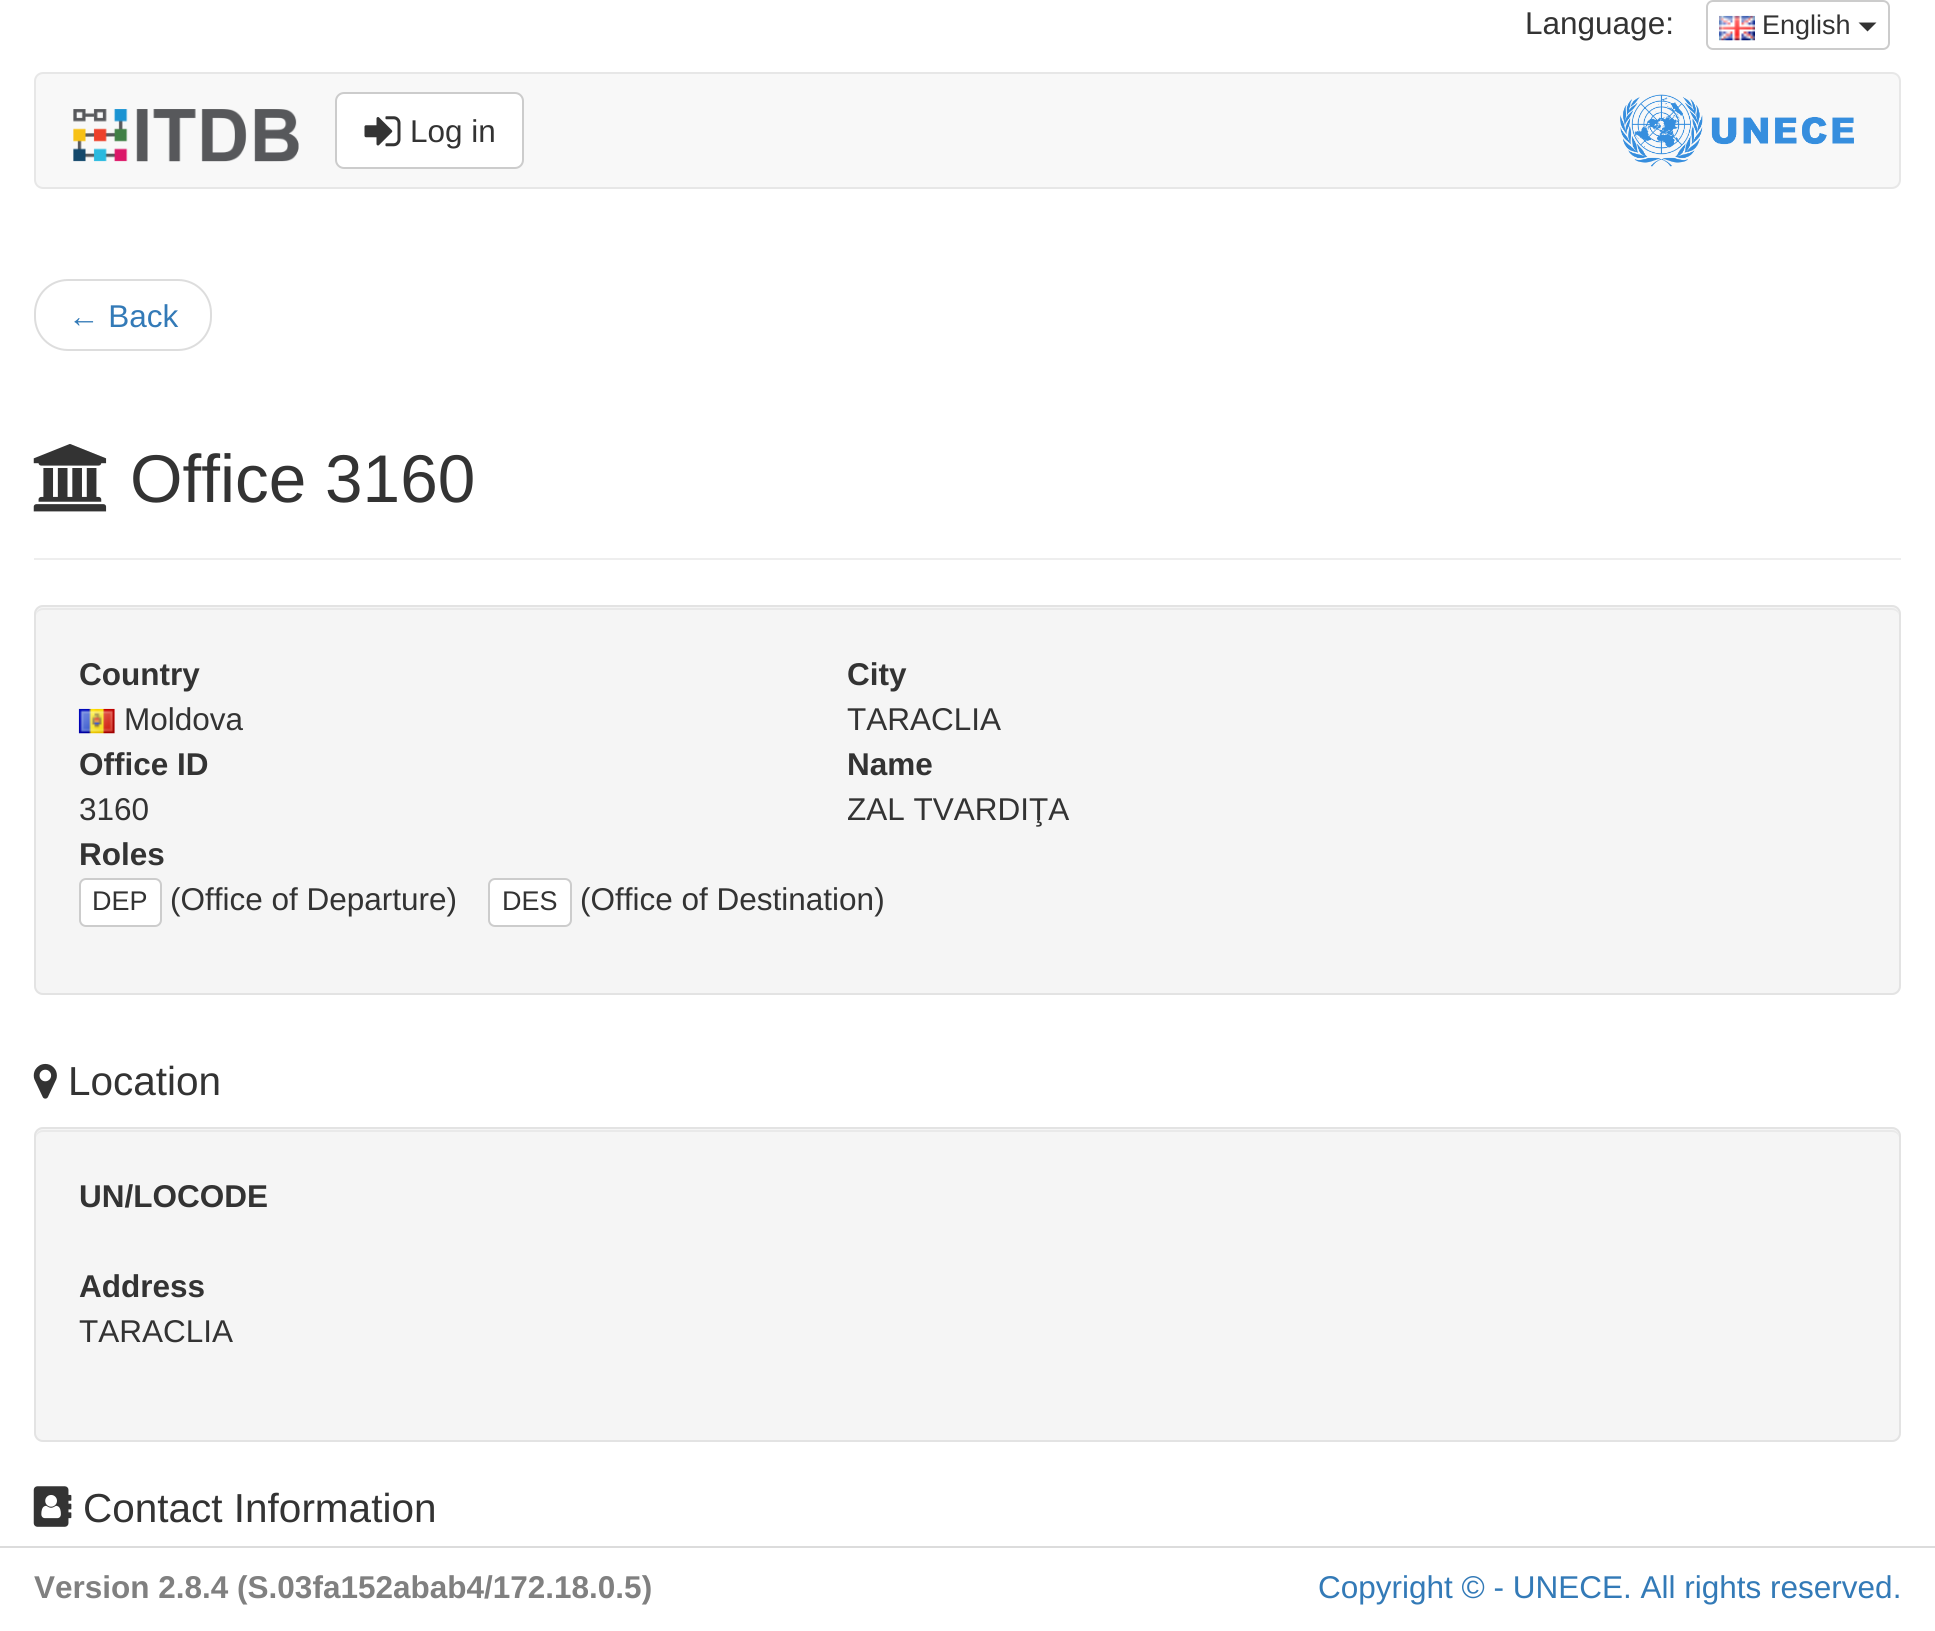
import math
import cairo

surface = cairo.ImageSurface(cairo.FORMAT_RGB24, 1935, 1631)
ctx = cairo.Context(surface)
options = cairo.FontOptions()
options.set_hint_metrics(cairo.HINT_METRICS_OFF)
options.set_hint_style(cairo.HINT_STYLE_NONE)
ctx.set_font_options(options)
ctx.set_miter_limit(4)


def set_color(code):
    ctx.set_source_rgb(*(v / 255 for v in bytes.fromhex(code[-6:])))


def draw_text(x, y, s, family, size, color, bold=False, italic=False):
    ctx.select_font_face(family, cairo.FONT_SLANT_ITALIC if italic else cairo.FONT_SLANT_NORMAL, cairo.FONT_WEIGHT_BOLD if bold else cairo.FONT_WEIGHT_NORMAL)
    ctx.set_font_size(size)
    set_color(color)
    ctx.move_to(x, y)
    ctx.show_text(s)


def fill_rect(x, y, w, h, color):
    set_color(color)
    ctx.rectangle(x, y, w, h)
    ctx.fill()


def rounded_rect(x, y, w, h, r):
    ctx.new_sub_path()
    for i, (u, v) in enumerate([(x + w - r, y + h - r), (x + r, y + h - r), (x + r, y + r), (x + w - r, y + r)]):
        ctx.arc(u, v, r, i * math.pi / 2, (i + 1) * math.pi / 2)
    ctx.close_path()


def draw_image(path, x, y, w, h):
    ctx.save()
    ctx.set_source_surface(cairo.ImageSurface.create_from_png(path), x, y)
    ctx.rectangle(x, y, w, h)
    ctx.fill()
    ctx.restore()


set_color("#ffffff")
ctx.paint()
draw_text(1525, 34, "Language:", "Liberation Sans", 31.5, "#333333")
rounded_rect(1707, 1, 182, 48, 6)
set_color("#cccccc")
ctx.stroke()
draw_image("assets/img1.png", 1719, 15, 36, 26)
draw_text(1762, 34, "English", "Liberation Sans", 27, "#333333")
ctx.new_path()
ctx.move_to(1858.5, 22.5)
ctx.line_to(1876.5, 22.5)
ctx.line_to(1867.5, 31.5)
ctx.close_path()
ctx.fill()
set_color("#f8f8f8")
rounded_rect(35, 73, 1865, 115, 8)
ctx.fill_preserve()
set_color("#e7e7e7")
ctx.stroke()
draw_image("assets/img2.png", 73, 109, 226, 53)
set_color("#ffffff")
rounded_rect(336, 93, 187, 75, 8)
ctx.fill_preserve()
set_color("#cccccc")
ctx.stroke()
draw_image("assets/img3.png", 364, 116, 37, 31)
draw_text(410, 142, "Log in", "Liberation Sans", 31.5, "#333333")
draw_image("assets/img4.png", 1620, 94, 234, 73)
rounded_rect(35, 280, 176, 70, 33)
set_color("#dddddd")
ctx.stroke()
draw_text(68, 327, "← Back", "Liberation Sans", 31.5, "#337ab7")
fill_rect(34, 558, 1867, 2, "#eeeeee")
draw_image("assets/img5.png", 33, 444, 74, 68)
draw_text(130, 502, "Office 3160", "Liberation Sans", 67.5, "#333333")
set_color("#f5f5f5")
rounded_rect(34, 605, 1867, 390, 9)
ctx.fill()
set_color("#e9e9e9")
ctx.new_path()
ctx.move_to(43, 610)
ctx.line_to(1892, 610)
ctx.curve_to(1896, 610, 1899, 613, 1899, 616)
ctx.line_to(1899, 615)
ctx.curve_to(1899, 611, 1896, 608, 1892, 608)
ctx.line_to(43, 608)
ctx.curve_to(39, 608, 36, 611, 36, 615)
ctx.line_to(36, 616)
ctx.curve_to(36, 613, 39, 610, 43, 610)
ctx.close_path()
ctx.fill()
rounded_rect(35, 606, 1865, 388, 8)
set_color("#e3e3e3")
ctx.stroke()
draw_text(79, 685, "Country", "Liberation Sans", 31.5, "#333333", bold=True)
draw_image("assets/img6.png", 78, 708, 37, 26)
draw_text(124, 730, "Moldova", "Liberation Sans", 31.5, "#333333")
draw_text(847, 685, "City", "Liberation Sans", 31.5, "#333333", bold=True)
draw_text(847, 730, "TARACLIA", "Liberation Sans", 31.5, "#333333")
draw_text(79, 775, "Office ID", "Liberation Sans", 31.5, "#333333", bold=True)
draw_text(79, 820, "3160", "Liberation Sans", 31.5, "#333333")
draw_text(847, 775, "Name", "Liberation Sans", 31.5, "#333333", bold=True)
draw_text(847, 820, "ZAL TVARDIŢA", "Liberation Sans", 31.5, "#333333")
draw_text(79, 865, "Roles", "Liberation Sans", 31.5, "#333333", bold=True)
set_color("#ffffff")
rounded_rect(80, 879, 81, 47, 6)
ctx.fill_preserve()
set_color("#cccccc")
ctx.stroke()
draw_text(92, 910, "DEP", "Liberation Sans", 27, "#333333")
draw_text(170, 910, "(Office of Departure)", "Liberation Sans", 31.5, "#333333")
set_color("#ffffff")
rounded_rect(489, 879, 82, 47, 6)
ctx.fill_preserve()
set_color("#cccccc")
ctx.stroke()
draw_text(502, 910, "DES", "Liberation Sans", 27, "#333333")
draw_text(580, 910, "(Office of Destination)", "Liberation Sans", 31.5, "#333333")
draw_image("assets/img7.png", 33, 1063, 24, 36)
draw_text(68, 1095, "Location", "Liberation Sans", 40.5, "#333333")
set_color("#f5f5f5")
rounded_rect(34, 1127, 1867, 315, 9)
ctx.fill()
set_color("#e9e9e9")
ctx.new_path()
ctx.move_to(43, 1132)
ctx.line_to(1892, 1132)
ctx.curve_to(1896, 1132, 1899, 1135, 1899, 1138)
ctx.line_to(1899, 1137)
ctx.curve_to(1899, 1133, 1896, 1130, 1892, 1130)
ctx.line_to(43, 1130)
ctx.curve_to(39, 1130, 36, 1133, 36, 1137)
ctx.line_to(36, 1138)
ctx.curve_to(36, 1135, 39, 1132, 43, 1132)
ctx.close_path()
ctx.fill()
rounded_rect(35, 1128, 1865, 313, 8)
set_color("#e3e3e3")
ctx.stroke()
draw_text(79, 1207, "UN/LOCODE", "Liberation Sans", 31.5, "#333333", bold=True)
draw_text(79, 1297, "Address", "Liberation Sans", 31.5, "#333333", bold=True)
draw_text(79, 1342, "TARACLIA", "Liberation Sans", 31.5, "#333333")
draw_image("assets/img8.png", 33, 1486, 39, 41)
draw_text(83, 1522, "Contact Information", "Liberation Sans", 40.5, "#333333")
fill_rect(0, 1546, 1935, 2, "#dcdcdc")
draw_text(34, 1598, "Version 2.8.4 (S.03fa152abab4/172.18.0.5)", "Liberation Sans", 31.5, "#808080", bold=True)
draw_text(1318, 1598, "Copyright © - UNECE. All rights reserved.", "Liberation Sans", 31.5, "#337ab7")
surface.write_to_png("output.png")
